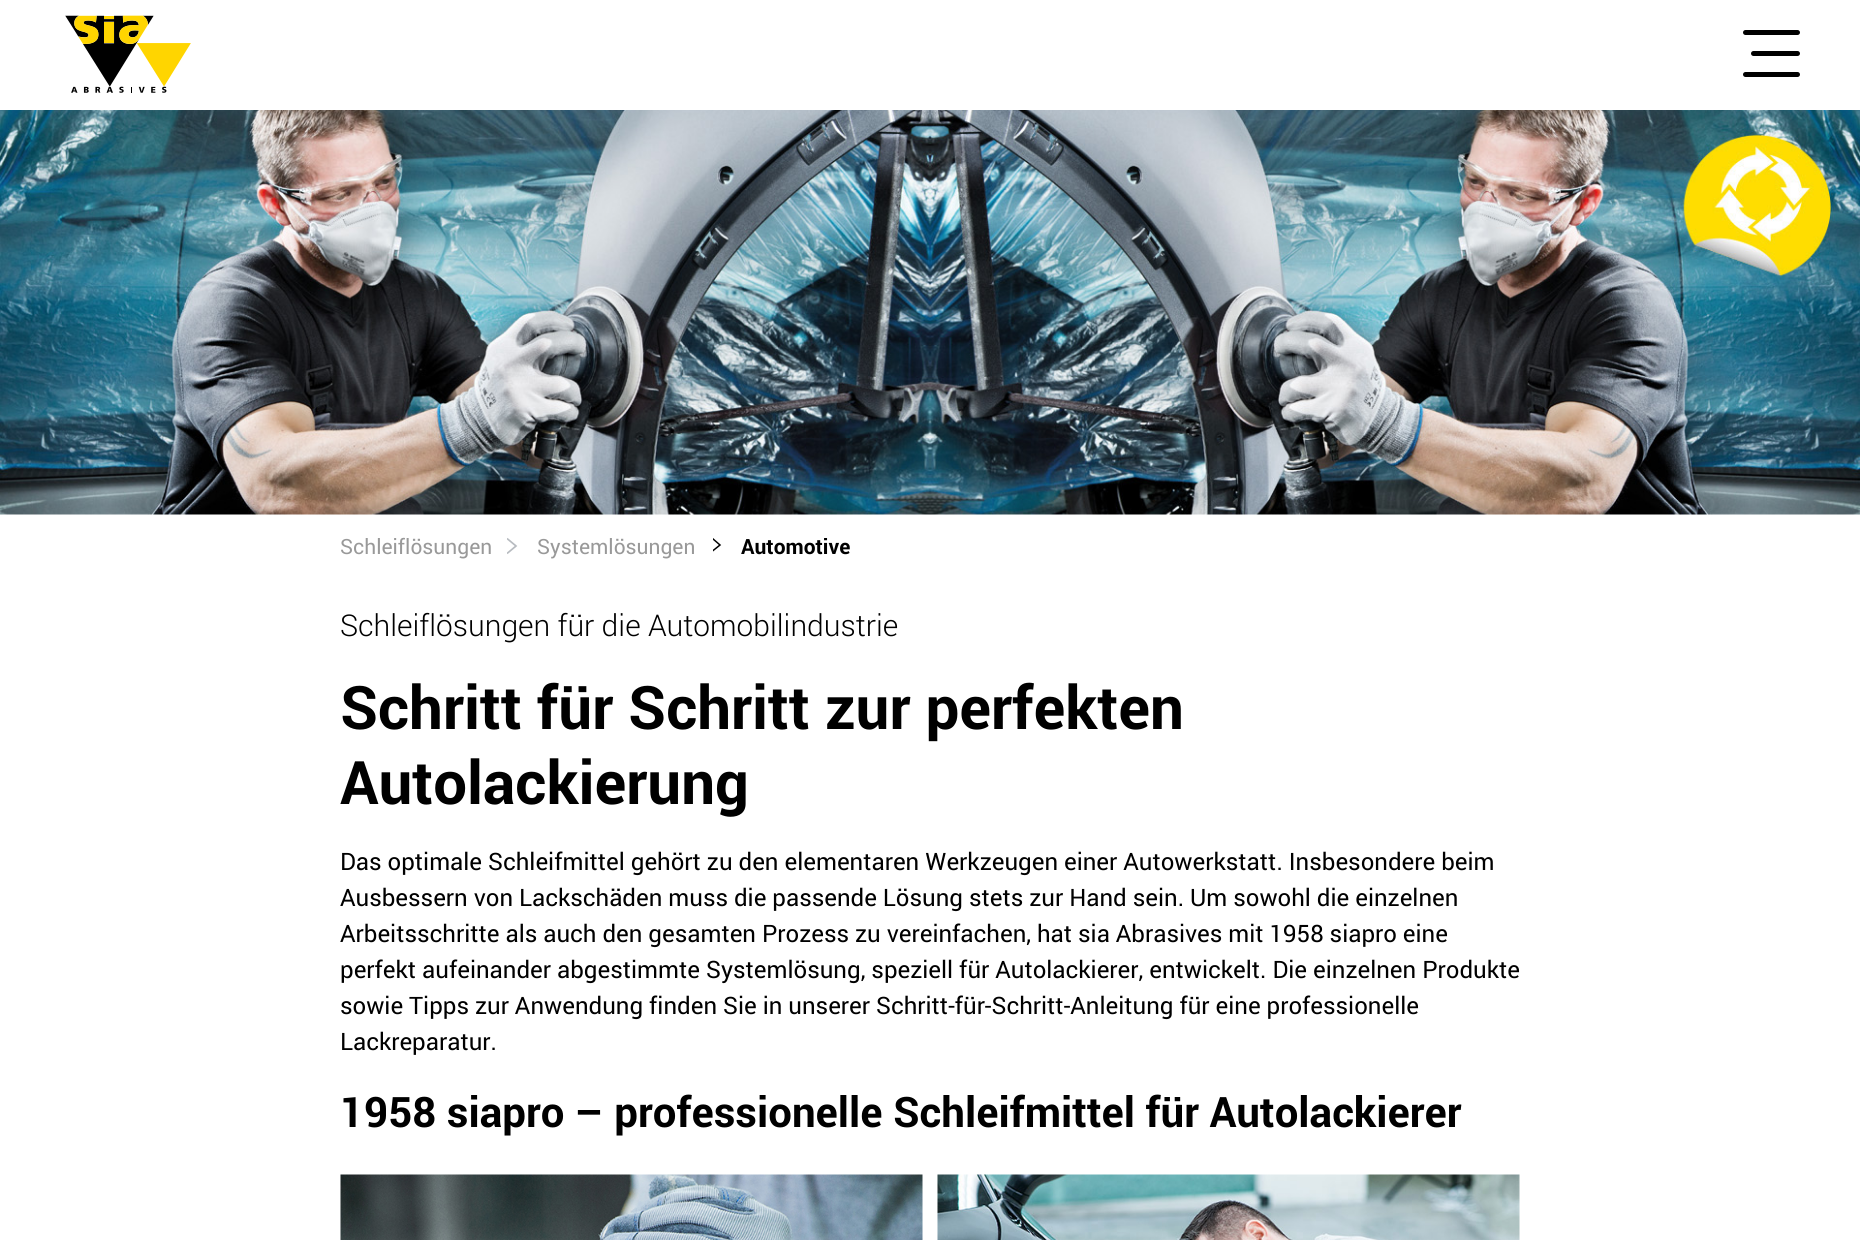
import math
import cairo

surface = cairo.ImageSurface(cairo.FORMAT_RGB24, 1860, 1240)
ctx = cairo.Context(surface)
options = cairo.FontOptions()
options.set_hint_metrics(cairo.HINT_METRICS_OFF)
options.set_hint_style(cairo.HINT_STYLE_NONE)
ctx.set_font_options(options)
ctx.set_miter_limit(4)


def set_color(code):
    ctx.set_source_rgb(*(v / 255 for v in bytes.fromhex(code[-6:])))


def draw_text(x, y, s, family, size, color, bold=False, italic=False):
    ctx.select_font_face(family, cairo.FONT_SLANT_ITALIC if italic else cairo.FONT_SLANT_NORMAL, cairo.FONT_WEIGHT_BOLD if bold else cairo.FONT_WEIGHT_NORMAL)
    ctx.set_font_size(size)
    set_color(color)
    ctx.move_to(x, y)
    ctx.show_text(s)


def rounded_rect(x, y, w, h, r):
    ctx.new_sub_path()
    for i, (u, v) in enumerate([(x + w - r, y + h - r), (x + r, y + h - r), (x + r, y + r), (x + w - r, y + r)]):
        ctx.arc(u, v, r, i * math.pi / 2, (i + 1) * math.pi / 2)
    ctx.close_path()


def draw_image(path, x, y, w, h):
    ctx.save()
    ctx.set_source_surface(cairo.ImageSurface.create_from_png(path), x, y)
    ctx.rectangle(x, y, w, h)
    ctx.fill()
    ctx.restore()


set_color("#ffffff")
ctx.paint()
draw_image("assets/img1.png", 65, 15, 126, 78)
set_color("#000000")
rounded_rect(1743, 30, 57, 5, 2.5)
ctx.fill()
rounded_rect(1751, 51, 49, 5, 2.5)
ctx.fill()
rounded_rect(1743, 72, 57, 5, 2.5)
ctx.fill()
draw_image("assets/img2.png", 0, 110, 1860, 405)
draw_text(340, 554, "Schleiflösungen", "Roboto", 21, "#999999")
ctx.save()
ctx.rectangle(507, 537, 11, 18)
ctx.clip()
ctx.new_path()
ctx.move_to(507, 538.5)
ctx.line_to(516, 546)
ctx.line_to(507, 553.5)
set_color("#b7bbc0")
ctx.set_line_width(1.7)
ctx.stroke()
ctx.restore()
draw_text(537, 554, "Systemlösungen", "Roboto", 21, "#999999")
ctx.save()
ctx.rectangle(713, 537, 9, 15)
ctx.clip()
ctx.new_path()
ctx.move_to(712.5, 538.5)
ctx.line_to(720, 545)
ctx.line_to(712.5, 551)
set_color("#000000")
ctx.set_line_width(1.5)
ctx.stroke()
ctx.restore()
draw_text(741, 554, "Automotive", "Roboto", 21, "#000000", bold=True)
draw_text(340, 636, "Schleiflösungen für die Automobilindustrie", "Roboto Light", 30, "#000000")
draw_text(340, 729, "Schritt für Schritt zur perfekten", "Roboto", 60, "#000000", bold=True)
draw_text(340, 804, "Autolackierung", "Roboto", 60, "#000000", bold=True)
draw_text(340, 870, "Das optimale Schleifmittel gehört zu den elementaren Werkzeugen einer Autowerkstatt. Insbesondere beim", "Roboto", 24, "#000000")
draw_text(340, 906, "Ausbessern von Lackschäden muss die passende Lösung stets zur Hand sein. Um sowohl die einzelnen", "Roboto", 24, "#000000")
draw_text(340, 942, "Arbeitsschritte als auch den gesamten Prozess zu vereinfachen, hat sia Abrasives mit 1958 siapro eine", "Roboto", 24, "#000000")
draw_text(340, 978, "perfekt aufeinander abgestimmte Systemlösung, speziell für Autolackierer, entwickelt. Die einzelnen Produkte", "Roboto", 24, "#000000")
draw_text(340, 1014, "sowie Tipps zur Anwendung finden Sie in unserer Schritt-für-Schritt-Anleitung für eine professionelle", "Roboto", 24, "#000000")
draw_text(340, 1050, "Lackreparatur.", "Roboto", 24, "#000000")
draw_text(340, 1127, "1958 siapro – professionelle Schleifmittel für Autolackierer", "Roboto", 42, "#000000", bold=True)
draw_image("assets/img3.png", 340, 1174, 583, 66)
draw_image("assets/img4.png", 937, 1174, 583, 66)
surface.write_to_png("output.png")
